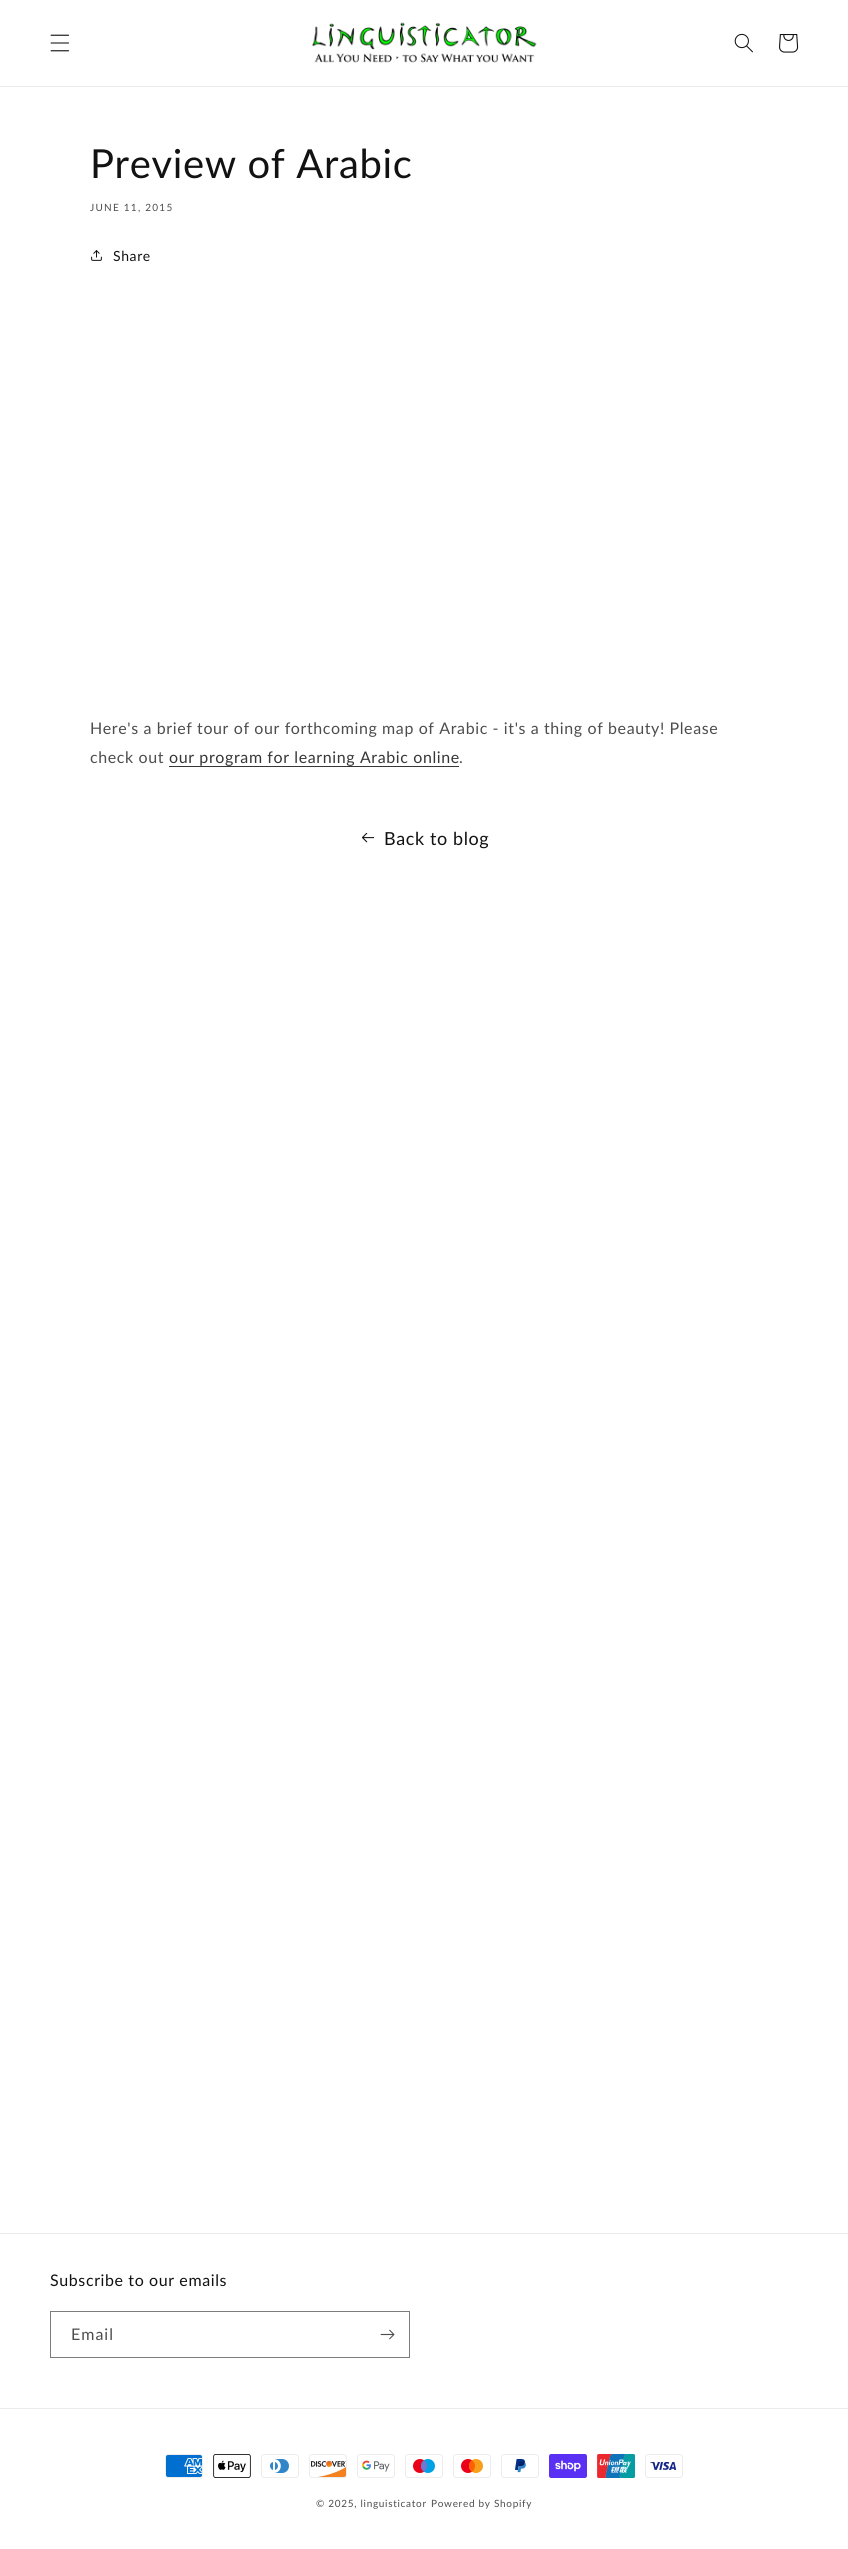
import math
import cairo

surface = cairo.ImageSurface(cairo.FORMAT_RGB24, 848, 2549)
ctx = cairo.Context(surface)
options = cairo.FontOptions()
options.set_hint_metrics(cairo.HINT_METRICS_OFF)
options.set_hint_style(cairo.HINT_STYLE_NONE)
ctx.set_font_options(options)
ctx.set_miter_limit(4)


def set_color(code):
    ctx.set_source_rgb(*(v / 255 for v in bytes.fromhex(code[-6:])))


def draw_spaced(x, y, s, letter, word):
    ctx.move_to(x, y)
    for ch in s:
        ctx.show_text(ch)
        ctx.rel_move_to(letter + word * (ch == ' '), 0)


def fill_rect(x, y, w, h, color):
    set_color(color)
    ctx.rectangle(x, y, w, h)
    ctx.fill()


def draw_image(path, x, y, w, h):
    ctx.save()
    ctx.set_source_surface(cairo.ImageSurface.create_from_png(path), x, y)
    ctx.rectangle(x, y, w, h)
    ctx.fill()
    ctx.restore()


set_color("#ffffff")
ctx.paint()
fill_rect(0, 86, 848, 1, "#ececec")
draw_image("assets/img1.png", 50, 34, 20, 18)
draw_image("assets/img2.png", 311, 22, 226, 41)
draw_image("assets/img3.png", 734, 33, 19, 20)
draw_image("assets/img4.png", 779, 34, 20, 19)
ctx.select_font_face("Lato")
ctx.set_font_size(40)
set_color("#121212")
draw_spaced(90, 178, "Preview of Arabic", 0.6, 0)
ctx.set_font_size(10)
set_color("#4d4d4d")
draw_spaced(90, 211, "JUNE 11, 2015", 1.25, 0)
draw_image("assets/img5.png", 91, 250, 11, 11)
ctx.set_font_size(14)
set_color("#121212")
draw_spaced(113, 261, "Share", 0.6, 0)
ctx.set_font_size(16)
set_color("#4d4d4d")
draw_spaced(90, 734, "Here's a brief tour of our forthcoming map of Arabic - it's a thing of beauty! Please", 0.6, 0)
draw_spaced(90, 763, "check out", 0.6, 0)
set_color("#363636")
draw_spaced(169, 763, "our program for learning Arabic online", 0.6, 0)
fill_rect(169, 766, 290, 1, "#363636")
set_color("#4d4d4d")
draw_spaced(459, 763, ".", 0.6, 0)
draw_image("assets/img6.png", 361, 833, 13, 10)
ctx.set_font_size(18)
set_color("#121212")
draw_spaced(384, 845, "Back to blog", 0.6, 0)
fill_rect(0, 2233, 848, 1, "#ececec")
ctx.set_font_size(16)
set_color("#121212")
draw_spaced(50, 2286, "Subscribe to our emails", 0.6, 0)
ctx.rectangle(50.5, 2311.5, 359, 46)
set_color("#7d7d7d")
ctx.set_line_width(1)
ctx.stroke()
set_color("#4d4d4d")
draw_spaced(71, 2340, "Email", 1, 0)
draw_image("assets/img7.png", 380, 2329, 15, 11)
fill_rect(0, 2408, 848, 1, "#ececec")
draw_image("assets/img8.png", 165, 2454, 38, 24)
draw_image("assets/img9.png", 213, 2454, 38, 24)
draw_image("assets/img10.png", 261, 2454, 38, 24)
draw_image("assets/img11.png", 309, 2454, 38, 24)
draw_image("assets/img12.png", 357, 2454, 38, 24)
draw_image("assets/img13.png", 405, 2454, 38, 24)
draw_image("assets/img14.png", 453, 2454, 38, 24)
draw_image("assets/img15.png", 501, 2454, 38, 24)
draw_image("assets/img16.png", 549, 2454, 38, 24)
draw_image("assets/img17.png", 597, 2454, 38, 24)
draw_image("assets/img18.png", 645, 2454, 38, 24)
ctx.set_font_size(10)
set_color("#4d4d4d")
draw_spaced(316, 2507, "© 2025, linguisticator", 0.7, 0)
draw_spaced(431, 2507, "Powered by Shopify", 0.7, 0)
surface.write_to_png("output.png")
